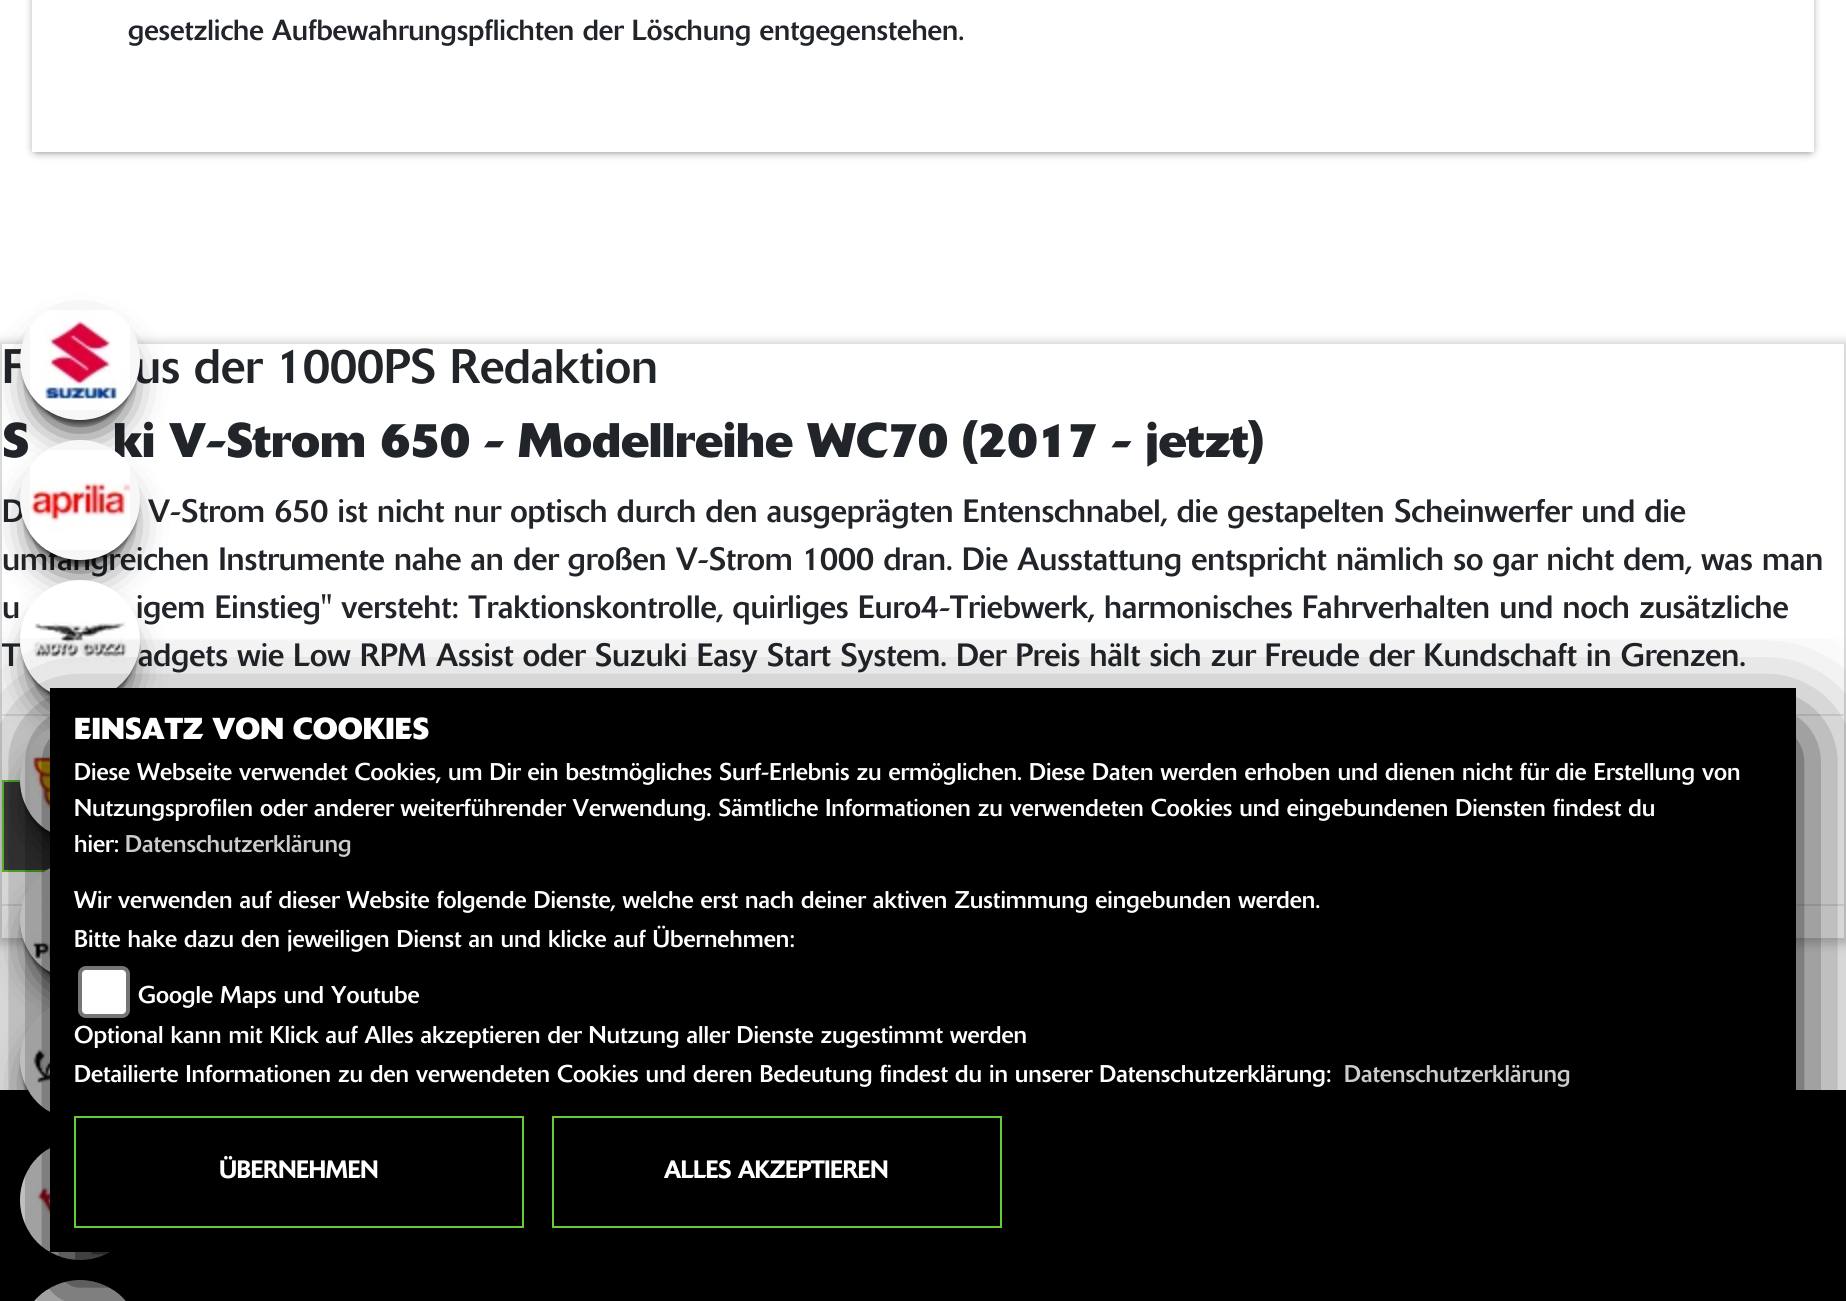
import math
import cairo

surface = cairo.ImageSurface(cairo.FORMAT_RGB24, 1846, 1301)
ctx = cairo.Context(surface)
options = cairo.FontOptions()
options.set_hint_metrics(cairo.HINT_METRICS_OFF)
options.set_hint_style(cairo.HINT_STYLE_NONE)
ctx.set_font_options(options)
ctx.set_miter_limit(4)


def set_color(code):
    ctx.set_source_rgb(*(v / 255 for v in bytes.fromhex(code[-6:])))


def draw_text(x, y, s, family, size, color, bold=False, italic=False):
    ctx.select_font_face(family, cairo.FONT_SLANT_ITALIC if italic else cairo.FONT_SLANT_NORMAL, cairo.FONT_WEIGHT_BOLD if bold else cairo.FONT_WEIGHT_NORMAL)
    ctx.set_font_size(size)
    set_color(color)
    ctx.move_to(x, y)
    ctx.show_text(s)


def fill_rect(x, y, w, h, color):
    set_color(color)
    ctx.rectangle(x, y, w, h)
    ctx.fill()


def rounded_rect(x, y, w, h, r):
    ctx.new_sub_path()
    for i, (u, v) in enumerate([(x + w - r, y + h - r), (x + r, y + h - r), (x + r, y + r), (x + w - r, y + r)]):
        ctx.arc(u, v, r, i * math.pi / 2, (i + 1) * math.pi / 2)
    ctx.close_path()


def draw_shadow(x, y, w, h, r, blur, alpha):
    ctx.push_group_with_content(cairo.CONTENT_ALPHA)
    ctx.set_operator(cairo.OPERATOR_SOURCE)
    for i in range(15, -16, -2):
        e = blur * i / 6
        if min(w, h) + 2 * e > 0:
            ctx.set_source_rgba(0, 0, 0, alpha * math.erfc((i - 1) / 8.5) / 2)
            rounded_rect(x - e, y - e, w + 2 * e, h + 2 * e, max(0, min(r + e + blur * .6, min(w, h) / 2 + e)))
            ctx.fill()
    ctx.mask(ctx.pop_group())


def draw_image(path, x, y, w, h):
    ctx.save()
    ctx.set_source_surface(cairo.ImageSurface.create_from_png(path), x, y)
    ctx.rectangle(x, y, w, h)
    ctx.fill()
    ctx.restore()


set_color("#ffffff")
ctx.paint()
ctx.save()
ctx.set_fill_rule(cairo.FILL_RULE_EVEN_ODD)
ctx.new_path()
ctx.move_to(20, 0)
ctx.line_to(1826, 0)
ctx.line_to(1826, 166)
ctx.line_to(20, 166)
ctx.close_path()
ctx.move_to(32, -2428)
ctx.line_to(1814, -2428)
ctx.line_to(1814, 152)
ctx.line_to(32, 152)
ctx.close_path()
ctx.clip()
set_color("#000000")
draw_shadow(36, -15, 1774, 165, 0, 5, 0.75)
ctx.restore()
draw_text(128, 40, "gesetzliche Aufbewahrungspflichten der Löschung entgegenstehen.", "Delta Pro", 28.8, "#212529")
ctx.save()
ctx.set_fill_rule(cairo.FILL_RULE_EVEN_ODD)
ctx.new_path()
ctx.move_to(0, 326)
ctx.line_to(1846, 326)
ctx.line_to(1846, 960)
ctx.line_to(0, 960)
ctx.close_path()
ctx.move_to(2, 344)
ctx.line_to(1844, 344)
ctx.line_to(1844, 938)
ctx.line_to(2, 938)
ctx.close_path()
ctx.clip()
set_color("#000000")
draw_shadow(-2, 342, 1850, 602, 0, 5, 0.2)
ctx.restore()
draw_text(2, 383, "F", "Delta Pro", 48, "#212529")
draw_text(134, 383, "us der 1000PS Redaktion", "Delta Pro", 48, "#212529")
draw_text(2, 457, "S", "Delta Pro", 48, "#212529", bold=True)
draw_text(113, 457, "ki V-Strom 650 - Modellreihe WC70 (2017 - jetzt)", "Delta Pro", 48, "#212529", bold=True)
draw_text(2, 522, "D", "Delta Pro", 32, "#212529")
draw_text(148, 522, "V-Strom 650 ist nicht nur optisch durch den ausgeprägten Entenschnabel, die gestapelten Scheinwerfer und die", "Delta Pro", 32, "#212529")
draw_text(2, 570, "umfangreichen Instrumente nahe an der großen V-Strom 1000 dran. Die Ausstattung entspricht nämlich so gar nicht dem, was man", "Delta Pro", 32, "#212529")
draw_text(2, 618, "u", "Delta Pro", 32, "#212529")
draw_text(136, 618, "igem Einstieg\" versteht: Traktionskontrolle, quirliges Euro4-Triebwerk, harmonisches Fahrverhalten und noch zusätzliche", "Delta Pro", 32, "#212529")
draw_text(2, 666, "T", "Delta Pro", 32, "#212529")
draw_text(138, 666, "adgets wie Low RPM Assist oder Suzuki Easy Start System. Der Preis hält sich zur Freude der Kundschaft in Grenzen.", "Delta Pro", 32, "#212529")
fill_rect(2, 714, 1842, 2, "#e6e6e6")
fill_rect(4, 782, 46, 88, "#404040")
ctx.rectangle(3, 781, 1216, 90)
set_color("#66cc33")
ctx.stroke()
fill_rect(2, 904, 1842, 2, "#e6e6e6")
set_color("#000000")
draw_shadow(40, 344, 80, 80, 40, 20, 1)
draw_shadow(22, 308, 116, 116, 58, 2, 0.5)
set_color("#f7f7f7")
ctx.arc(80, 360, 60, 0, 2 * math.pi)
ctx.fill()
draw_image("assets/img1.png", 30, 310, 100, 100)
set_color("#000000")
draw_shadow(40, 484, 80, 80, 40, 20, 1)
draw_shadow(22, 448, 116, 116, 58, 2, 0.5)
set_color("#f7f7f7")
ctx.arc(80, 500, 60, 0, 2 * math.pi)
ctx.fill()
draw_image("assets/img2.png", 30, 450, 100, 100)
set_color("#000000")
draw_shadow(40, 624, 80, 80, 40, 20, 1)
draw_shadow(22, 588, 116, 116, 58, 2, 0.5)
set_color("#ffffff")
ctx.arc(80, 640, 60, 0, 2 * math.pi)
ctx.fill()
draw_image("assets/img3.png", 30, 598, 100, 92)
set_color("#000000")
draw_shadow(40, 764, 80, 80, 40, 20, 1)
draw_shadow(22, 728, 116, 116, 58, 2, 0.5)
set_color("#f7f7f7")
ctx.arc(80, 780, 60, 0, 2 * math.pi)
ctx.fill()
draw_image("assets/img4.png", 30, 730, 20, 100)
set_color("#000000")
draw_shadow(40, 904, 80, 80, 40, 20, 1)
draw_shadow(22, 868, 116, 116, 58, 2, 0.5)
set_color("#ffffff")
ctx.arc(80, 920, 60, 0, 2 * math.pi)
ctx.fill()
draw_image("assets/img5.png", 30, 870, 20, 100)
fill_rect(0, 1090, 1846, 211, "#000000")
set_color("#000000")
draw_shadow(40, 1044, 80, 80, 40, 20, 1)
draw_shadow(22, 1008, 116, 116, 58, 2, 0.5)
set_color("#ffffff")
ctx.arc(80, 1060, 60, 0, 2 * math.pi)
ctx.fill()
draw_image("assets/img6.png", 30, 1049, 20, 61)
ctx.arc(80, 1200, 60, 0, 2 * math.pi)
ctx.fill()
draw_image("assets/img7.png", 30, 1150, 20, 100)
rounded_rect(20, 1280, 120, 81, 60)
ctx.fill()
draw_image("assets/img8.png", 34, 1290, 92, 11)
ctx.save()
ctx.rectangle(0, 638, 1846, 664)
ctx.clip()
set_color("#000000")
draw_shadow(50, 732, 1746, 564, 0, 50, 1)
ctx.restore()
fill_rect(50, 688, 1746, 564, "#000000")
draw_text(74, 739, "EINSATZ VON COOKIES", "Delta Pro", 30, "#ffffff", bold=True)
draw_text(74, 780, "Diese Webseite verwendet Cookies, um Dir ein bestmögliches Surf-Erlebnis zu ermöglichen. Diese Daten werden erhoben und dienen nicht für die Erstellung von", "Delta Pro", 24, "#ffffff")
draw_text(74, 816, "Nutzungsprofilen oder anderer weiterführender Verwendung. Sämtliche Informationen zu verwendeten Cookies und eingebundenen Diensten findest du", "Delta Pro", 24, "#ffffff")
draw_text(74, 852, "hier:", "Delta Pro", 24, "#ffffff")
draw_text(125, 852, "Datenschutzerklärung", "Delta Pro", 24, "#cccccc")
draw_text(74, 908, "Wir verwenden auf dieser Website folgende Dienste, welche erst nach deiner aktiven Zustimmung eingebunden werden.", "Delta Pro", 24, "#ffffff")
draw_text(74, 947, "Bitte hake dazu den jeweiligen Dienst an und klicke auf Übernehmen:", "Delta Pro", 24, "#ffffff")
rounded_rect(80, 968, 48, 48, 6)
ctx.fill_preserve()
set_color("#767676")
ctx.set_line_width(4)
ctx.stroke()
draw_text(138, 1003, "Google Maps und Youtube", "Delta Pro", 24, "#ffffff")
draw_text(74, 1043, "Optional kann mit Klick auf Alles akzeptieren der Nutzung aller Dienste zugestimmt werden", "Delta Pro", 24, "#ffffff")
draw_text(74, 1082, "Detailierte Informationen zu den verwendeten Cookies und deren Bedeutung findest du in unserer Datenschutzerklärung:", "Delta Pro", 24, "#ffffff")
draw_text(1344, 1082, "Datenschutzerklärung", "Delta Pro", 24, "#cccccc")
ctx.rectangle(75, 1117, 448, 110)
set_color("#66cc33")
ctx.set_line_width(2)
ctx.stroke()
draw_text(219, 1178, "ÜBERNEHMEN", "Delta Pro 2", 24, "#ffffff", bold=True)
ctx.rectangle(553, 1117, 448, 110)
set_color("#66cc33")
ctx.stroke()
draw_text(664, 1178, "ALLES AKZEPTIEREN", "Delta Pro 2", 24, "#ffffff", bold=True)
surface.write_to_png("output.png")
